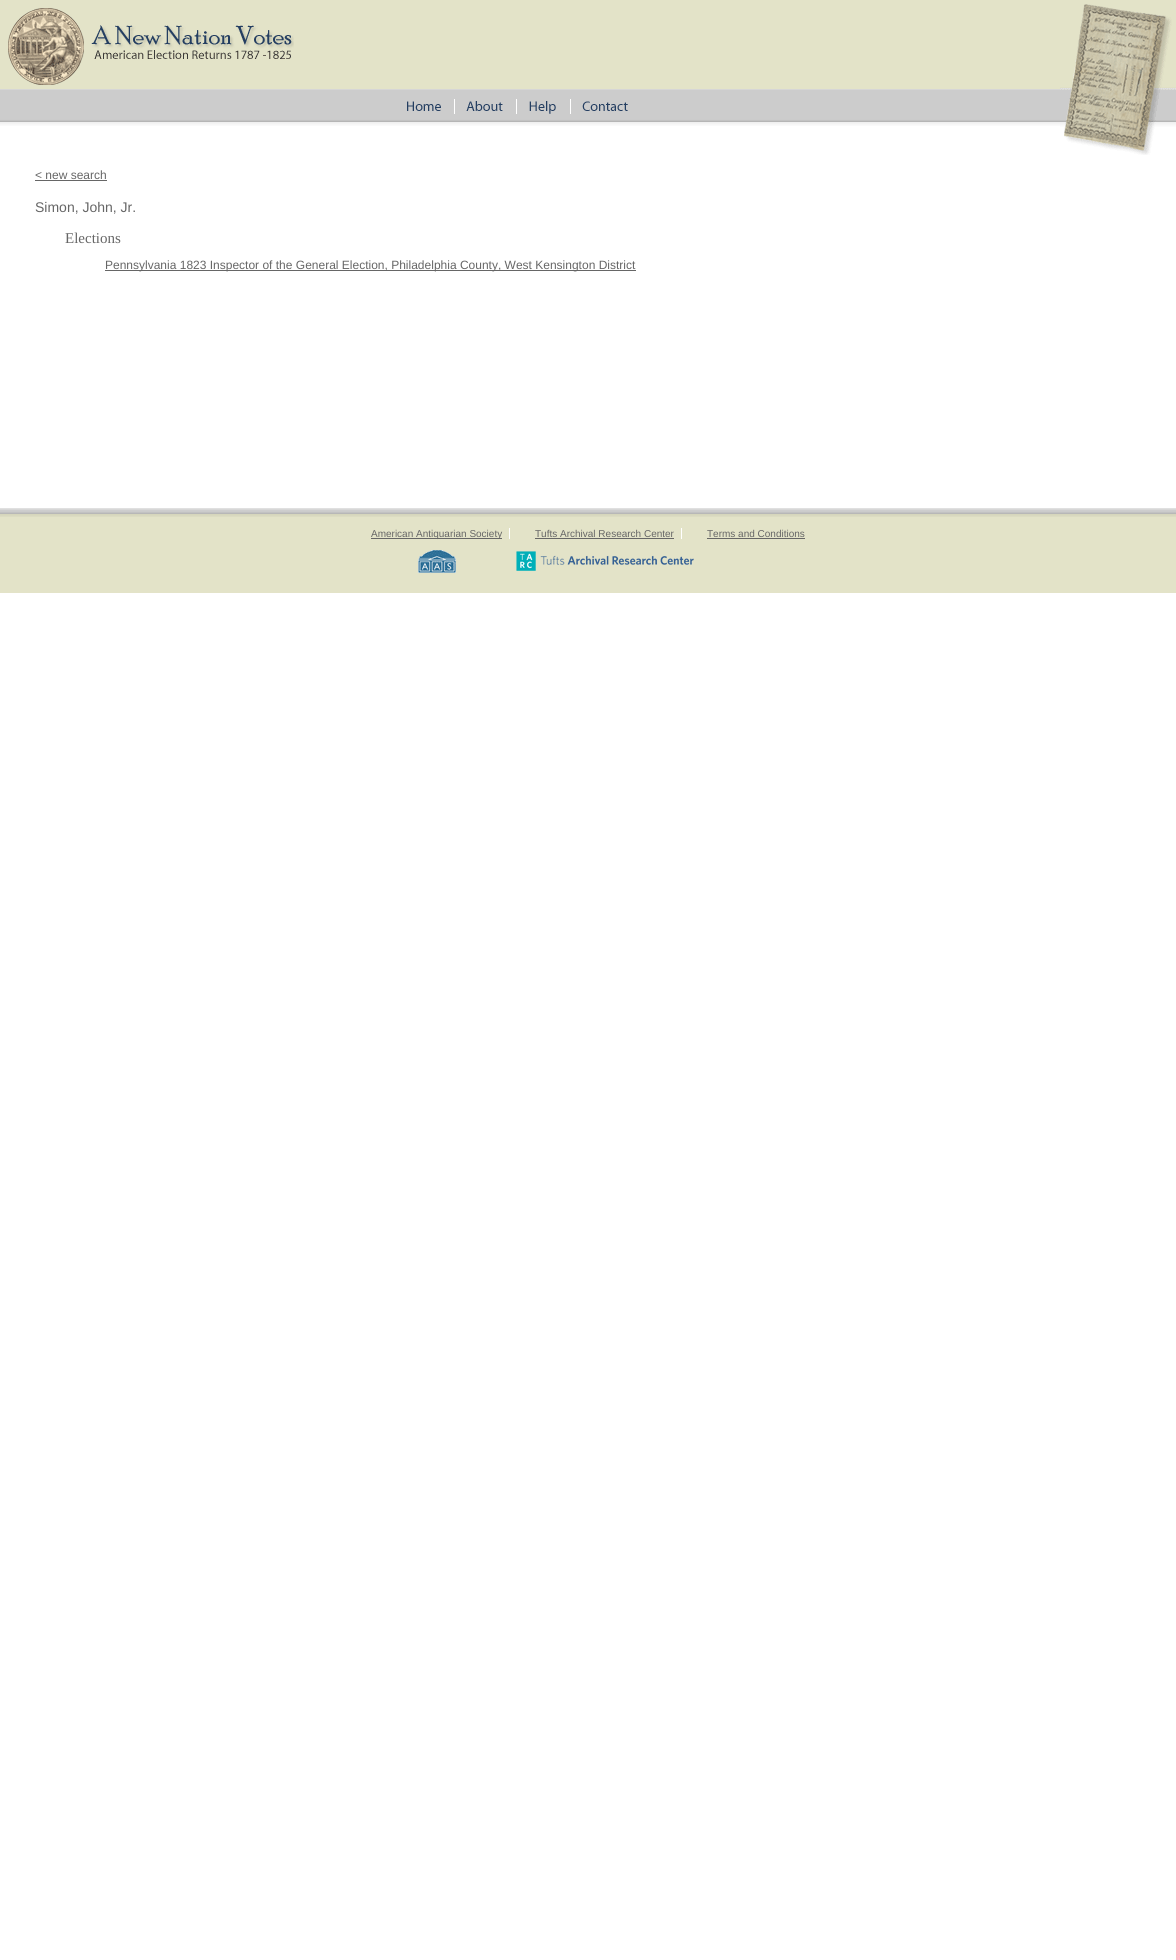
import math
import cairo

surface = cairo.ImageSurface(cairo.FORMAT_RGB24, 1176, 1960)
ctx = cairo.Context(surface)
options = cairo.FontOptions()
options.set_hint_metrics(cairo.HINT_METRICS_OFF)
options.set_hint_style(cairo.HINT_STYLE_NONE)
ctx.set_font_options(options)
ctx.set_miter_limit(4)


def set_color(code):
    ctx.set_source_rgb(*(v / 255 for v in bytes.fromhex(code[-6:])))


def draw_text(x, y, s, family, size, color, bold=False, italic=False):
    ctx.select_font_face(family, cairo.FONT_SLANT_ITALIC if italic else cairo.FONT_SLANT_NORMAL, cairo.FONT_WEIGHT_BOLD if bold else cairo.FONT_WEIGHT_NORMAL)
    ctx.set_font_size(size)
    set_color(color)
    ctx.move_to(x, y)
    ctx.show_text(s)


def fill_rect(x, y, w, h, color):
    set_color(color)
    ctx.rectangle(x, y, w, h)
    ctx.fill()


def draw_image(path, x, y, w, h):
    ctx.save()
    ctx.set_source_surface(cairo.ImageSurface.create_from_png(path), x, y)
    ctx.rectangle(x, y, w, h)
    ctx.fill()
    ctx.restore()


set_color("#ffffff")
ctx.paint()
fill_rect(0, 0, 1176, 89, "#e3e3c8")
draw_image("assets/img1.png", 8, 8, 286, 77)
draw_image("assets/img2.png", 0, 89, 1060, 37)
draw_image("assets/img3.png", 407, 101, 34, 10)
fill_rect(454, 99, 1, 15, "#ffffff")
draw_image("assets/img4.png", 466, 101, 37, 10)
fill_rect(516, 99, 1, 15, "#ffffff")
draw_image("assets/img5.png", 529, 101, 27, 13)
fill_rect(570, 99, 1, 15, "#ffffff")
draw_image("assets/img6.png", 582, 101, 46, 10)
draw_image("assets/img7.png", 1060, 4, 116, 151)
draw_text(35, 179, "< new search", "Liberation Sans", 12, "#666666")
fill_rect(35, 180, 72, 1, "#666666")
draw_text(35, 212, "Simon, John, Jr.", "Liberation Sans", 14, "#666666")
draw_text(65, 243, "Elections", "Liberation Serif", 15, "#666666")
fill_rect(105, 270, 531, 1, "#666666")
draw_text(105, 269, "Pennsylvania 1823 Inspector of the General Election, Philadelphia County, West Kensington District", "Liberation Sans", 12, "#666666")
fill_rect(0, 517, 1176, 76, "#e3e3c8")
draw_image("assets/img8.png", 0, 508, 1176, 9)
fill_rect(371, 538, 131, 1, "#666666")
draw_text(371, 537, "American Antiquarian Society", "Liberation Sans", 10, "#666666")
fill_rect(509, 528, 1, 11, "#ffffff")
draw_text(535, 537, "Tufts Archival Research Center", "Liberation Sans", 10, "#666666")
fill_rect(681, 528, 1, 11, "#ffffff")
fill_rect(535, 538, 139, 1, "#666666")
draw_text(707, 537, "Terms and Conditions", "Liberation Sans", 10, "#666666")
fill_rect(707, 538, 98, 1, "#666666")
draw_image("assets/img9.png", 418, 550, 38, 23)
draw_image("assets/img10.png", 516, 551, 178, 20)
surface.write_to_png("output.png")
